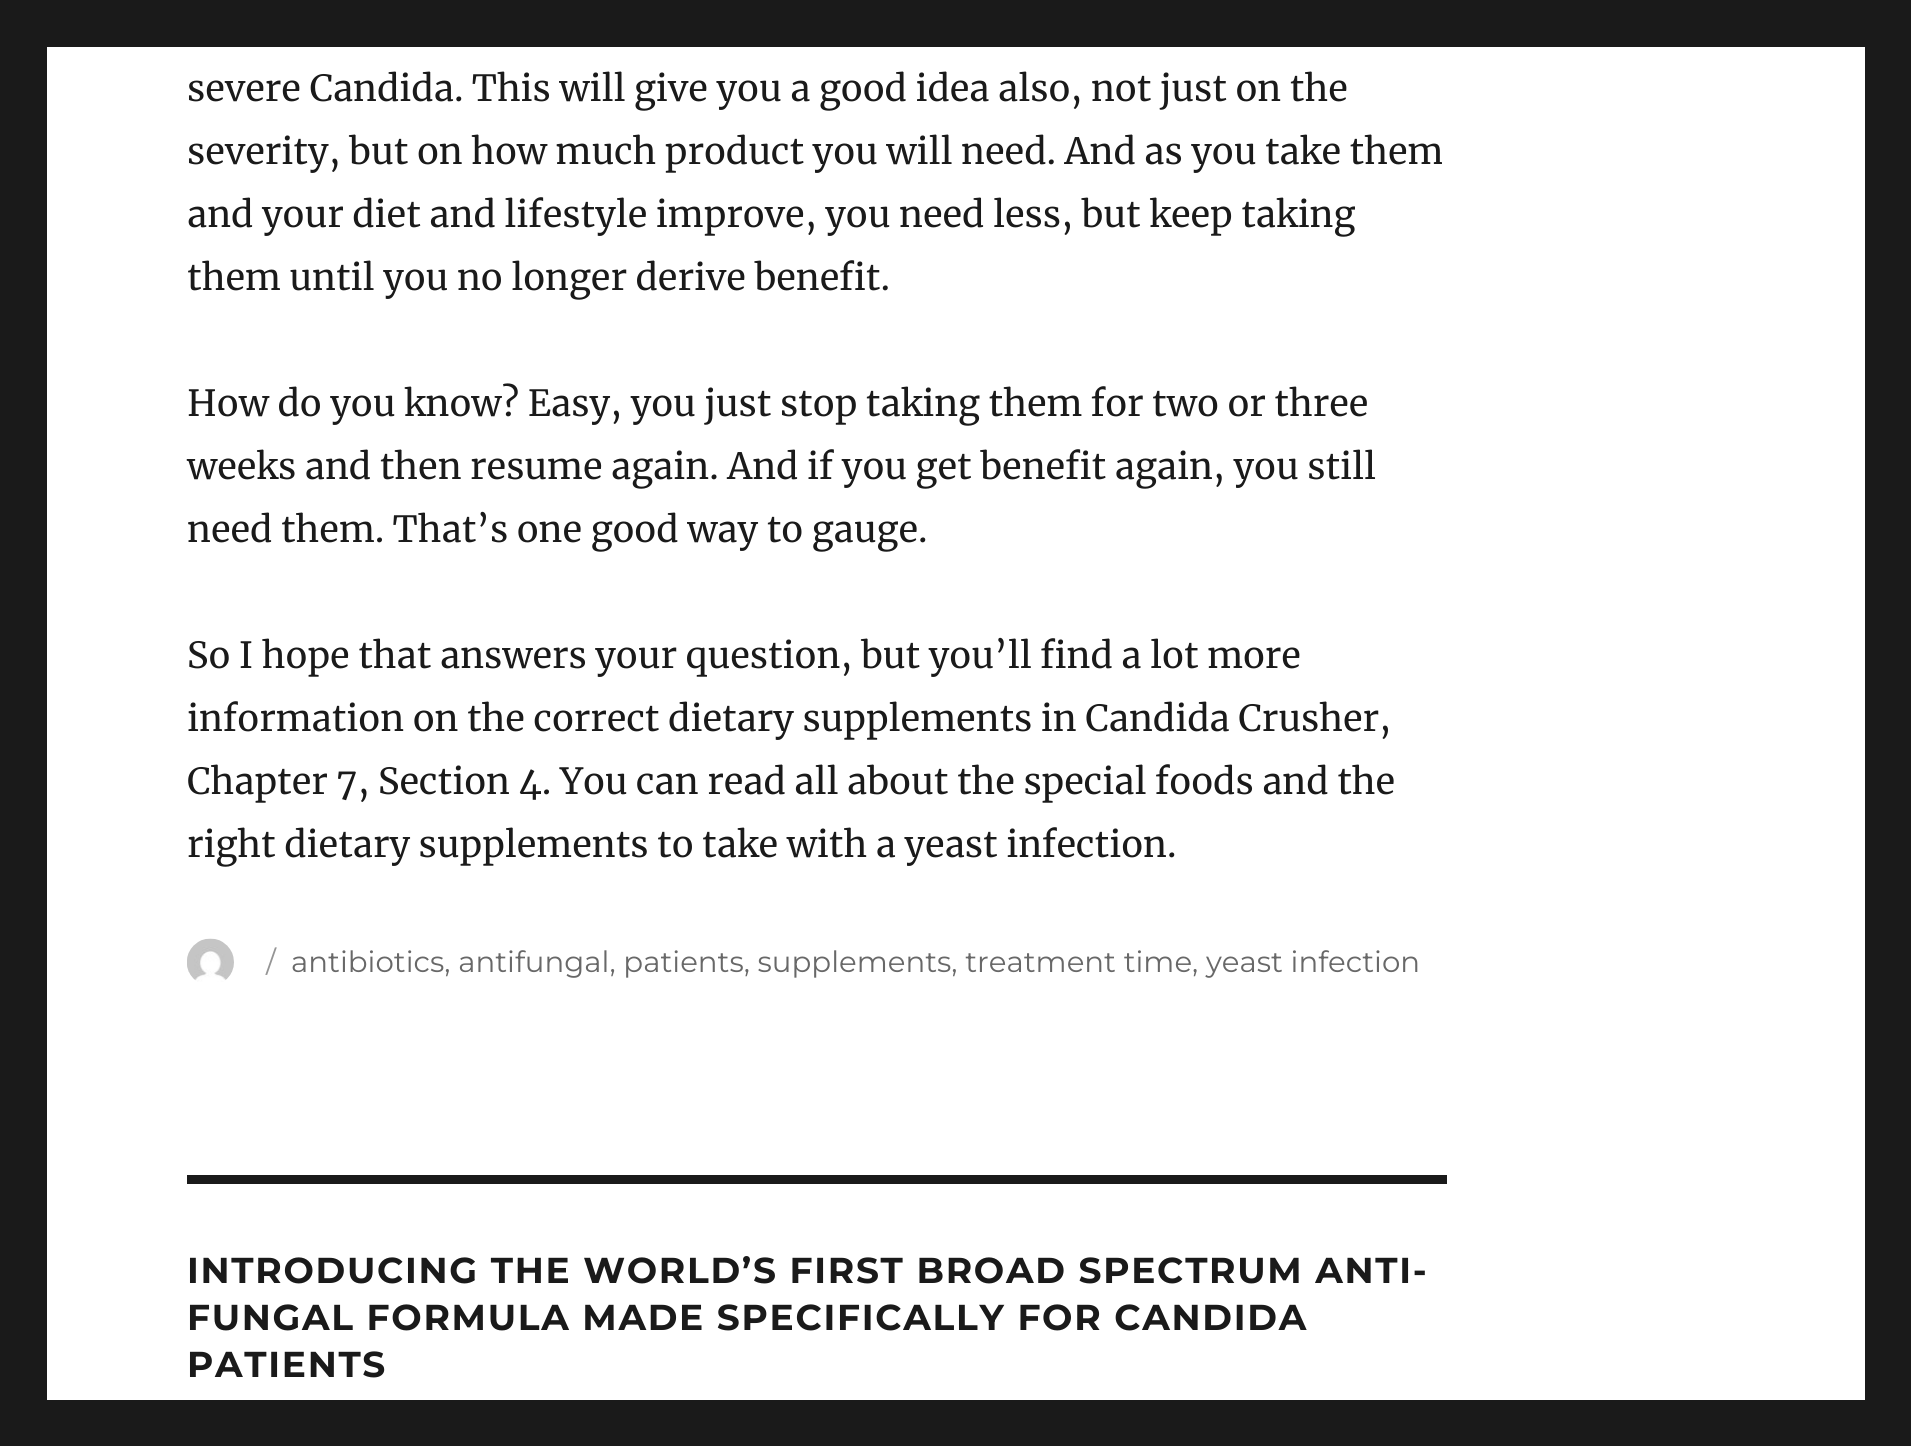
import math
import cairo

surface = cairo.ImageSurface(cairo.FORMAT_RGB24, 1911, 1446)
ctx = cairo.Context(surface)
options = cairo.FontOptions()
options.set_hint_metrics(cairo.HINT_METRICS_OFF)
options.set_hint_style(cairo.HINT_STYLE_NONE)
ctx.set_font_options(options)
ctx.set_miter_limit(4)


def set_color(code):
    ctx.set_source_rgb(*(v / 255 for v in bytes.fromhex(code[-6:])))


def draw_text(x, y, s, family, size, color, bold=False, italic=False):
    ctx.select_font_face(family, cairo.FONT_SLANT_ITALIC if italic else cairo.FONT_SLANT_NORMAL, cairo.FONT_WEIGHT_BOLD if bold else cairo.FONT_WEIGHT_NORMAL)
    ctx.set_font_size(size)
    set_color(color)
    ctx.move_to(x, y)
    ctx.show_text(s)


def draw_spaced(x, y, s, letter, word):
    ctx.move_to(x, y)
    for ch in s:
        ctx.show_text(ch)
        ctx.rel_move_to(letter + word * (ch == ' '), 0)


def fill_rect(x, y, w, h, color):
    set_color(color)
    ctx.rectangle(x, y, w, h)
    ctx.fill()


def draw_image(path, x, y, w, h):
    ctx.save()
    ctx.set_source_surface(cairo.ImageSurface.create_from_png(path), x, y)
    ctx.rectangle(x, y, w, h)
    ctx.fill()
    ctx.restore()


set_color("#1a1a1a")
ctx.paint()
fill_rect(47, 47, 1818, 1353, "#ffffff")
draw_text(187, 101, "severe Candida. This will give you a good idea also, not just on the", "Merriweather", 36, "#1a1a1a")
draw_text(187, 164, "severity, but on how much product you will need. And as you take them", "Merriweather", 36, "#1a1a1a")
draw_text(187, 227, "and your diet and lifestyle improve, you need less, but keep taking", "Merriweather", 36, "#1a1a1a")
draw_text(187, 290, "them until you no longer derive benefit.", "Merriweather", 36, "#1a1a1a")
draw_text(187, 416, "How do you know? Easy, you just stop taking them for two or three", "Merriweather", 36, "#1a1a1a")
draw_text(187, 479, "weeks and then resume again. And if you get benefit again, you still", "Merriweather", 36, "#1a1a1a")
draw_text(187, 542, "need them. That’s one good way to gauge.", "Merriweather", 36, "#1a1a1a")
draw_text(187, 668, "So I hope that answers your question, but you’ll find a lot more", "Merriweather", 36, "#1a1a1a")
draw_text(187, 731, "information on the correct dietary supplements in Candida Crusher,", "Merriweather", 36, "#1a1a1a")
draw_text(187, 794, "Chapter 7, Section 4. You can read all about the special foods and the", "Merriweather", 36, "#1a1a1a")
draw_text(187, 857, "right dietary supplements to take with a yeast infection.", "Merriweather", 36, "#1a1a1a")
draw_image("assets/img1.png", 187, 938, 47, 44)
draw_text(266, 972, "/", "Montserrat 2 Thin", 29.25, "#959595")
draw_text(291, 972, "antibiotics, antifungal, patients, supplements, treatment time, yeast infection", "Montserrat 2 Thin", 29.25, "#686868")
fill_rect(187, 1175, 1260, 9, "#1a1a1a")
ctx.select_font_face("Montserrat Thin")
ctx.set_font_size(36)
draw_spaced(187, 1283, "INTRODUCING THE WORLD’S FIRST BROAD SPECTRUM ANTI-", 1.7, 0)
draw_spaced(187, 1330, "FUNGAL FORMULA MADE SPECIFICALLY FOR CANDIDA", 1.7, 0)
draw_spaced(187, 1377, "PATIENTS", 1.7, 0)
surface.write_to_png("output.png")
